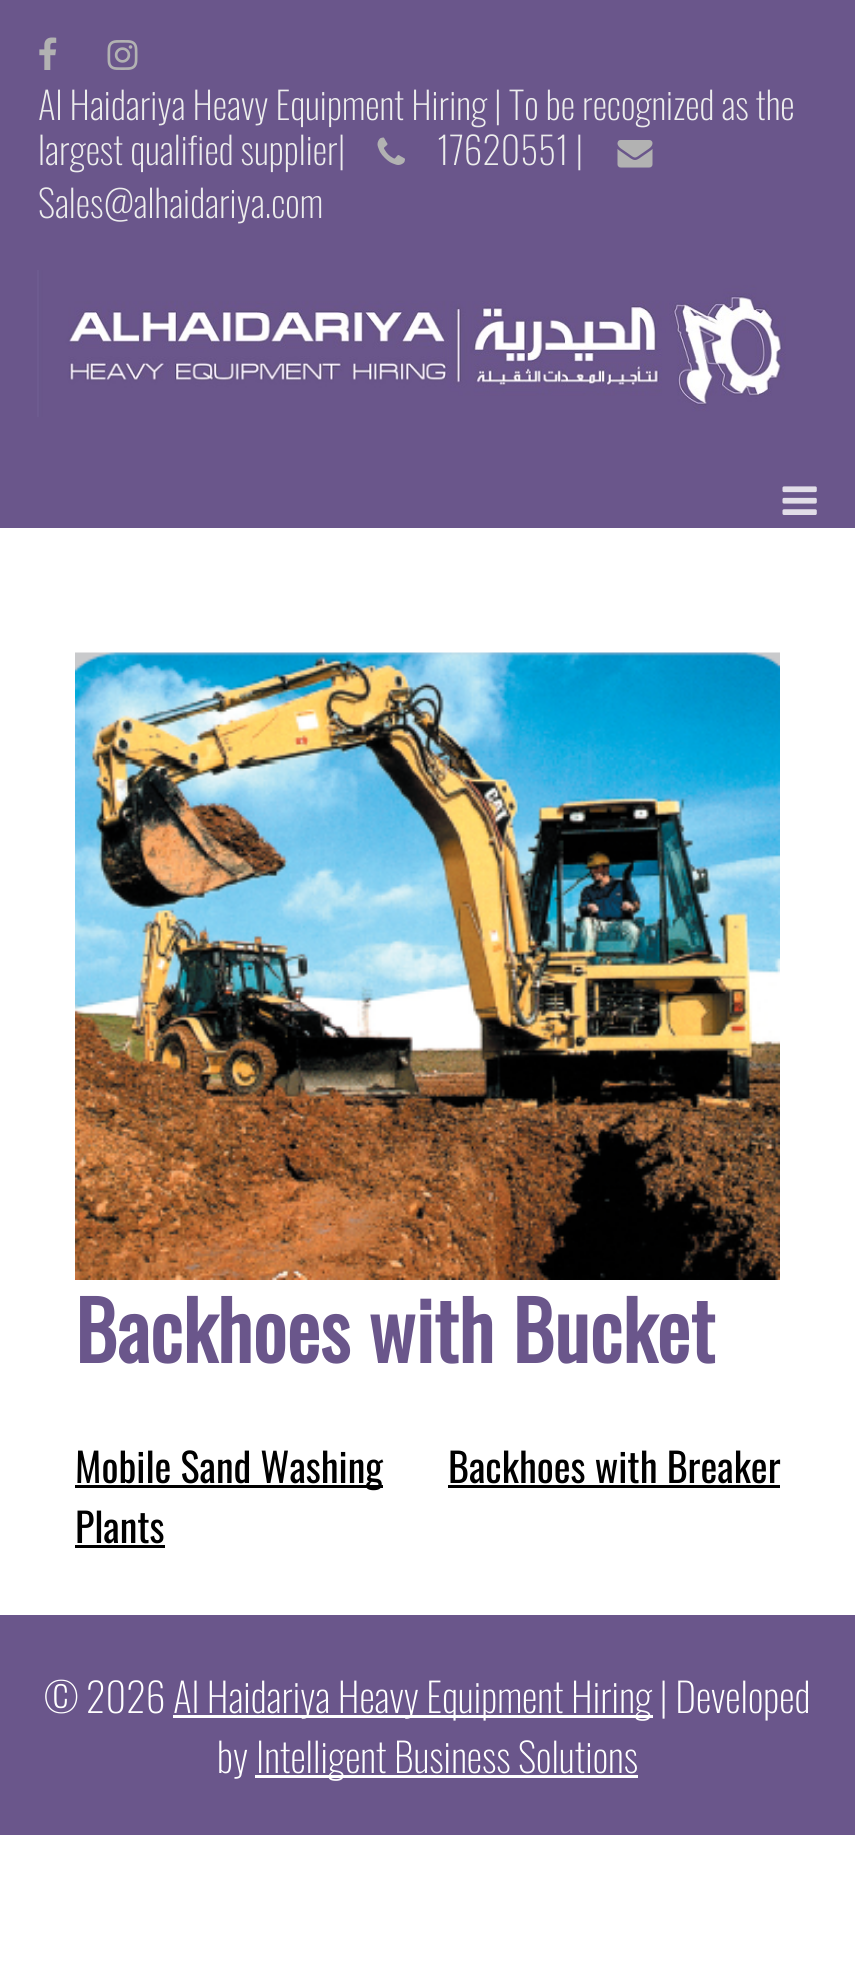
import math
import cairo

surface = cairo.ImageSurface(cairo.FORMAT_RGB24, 855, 1963)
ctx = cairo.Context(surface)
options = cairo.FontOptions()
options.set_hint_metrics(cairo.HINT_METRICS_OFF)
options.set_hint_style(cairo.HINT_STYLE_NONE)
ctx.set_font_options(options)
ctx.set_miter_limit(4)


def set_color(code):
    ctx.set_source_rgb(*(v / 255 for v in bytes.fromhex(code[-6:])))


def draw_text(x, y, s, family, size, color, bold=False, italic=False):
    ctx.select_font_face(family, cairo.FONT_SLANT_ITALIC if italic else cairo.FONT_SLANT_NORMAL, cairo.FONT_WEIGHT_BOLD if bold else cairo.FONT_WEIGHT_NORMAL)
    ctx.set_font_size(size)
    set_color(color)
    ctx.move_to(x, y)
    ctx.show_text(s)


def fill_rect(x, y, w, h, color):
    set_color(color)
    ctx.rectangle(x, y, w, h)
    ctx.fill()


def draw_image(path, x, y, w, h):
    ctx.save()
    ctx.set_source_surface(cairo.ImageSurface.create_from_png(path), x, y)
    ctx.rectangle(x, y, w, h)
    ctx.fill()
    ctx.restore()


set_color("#ffffff")
ctx.paint()
fill_rect(0, 0, 855, 528, "#6a568b")
draw_image("assets/img1.png", 39, 37, 18, 33)
draw_image("assets/img2.png", 107, 40, 31, 30)
draw_text(38, 120, "Al Haidariya Heavy Equipment Hiring | To be recognized as the", "Oswald ExtraLight", 37.5, "#ededed")
draw_text(38, 165, "largest qualified supplier|", "Oswald ExtraLight", 37.5, "#ededed")
draw_image("assets/img3.png", 377, 137, 28, 28)
draw_text(437, 165, "17620551 |", "Oswald ExtraLight", 37.5, "#ededed")
draw_image("assets/img4.png", 617, 140, 36, 28)
draw_text(38, 218, "Sales@alhaidariya.com", "Oswald ExtraLight", 37.5, "#ededed")
draw_image("assets/img5.png", 37, 270, 749, 147)
draw_image("assets/img6.png", 782, 486, 35, 29)
draw_image("assets/img7.png", 75, 652, 705, 628)
draw_text(75, 1363, "Backhoes with Bucket", "Oswald", 80, "#6a568b", bold=True)
fill_rect(75, 1485, 308, 3, "#000000")
draw_text(75, 1483, "Mobile Sand Washing", "Oswald", 40, "#000000")
draw_text(75, 1543, "Plants", "Oswald", 40, "#000000")
fill_rect(75, 1545, 90, 3, "#000000")
draw_text(448, 1483, "Backhoes with Breaker", "Oswald", 40, "#000000")
fill_rect(448, 1485, 332, 3, "#000000")
fill_rect(0, 1615, 855, 220, "#6a568b")
draw_text(44, 1713, "© 2026", "Oswald ExtraLight", 40, "#ffffff")
fill_rect(173, 1715, 480, 3, "#ffffff")
draw_text(173, 1713, "Al Haidariya Heavy Equipment Hiring | Developed", "Oswald ExtraLight", 40, "#ffffff")
draw_text(217, 1773, "by", "Oswald ExtraLight", 40, "#ffffff")
fill_rect(255, 1775, 383, 3, "#ffffff")
draw_text(256, 1773, "Intelligent Business Solutions", "Oswald ExtraLight", 40, "#ffffff")
surface.write_to_png("output.png")
